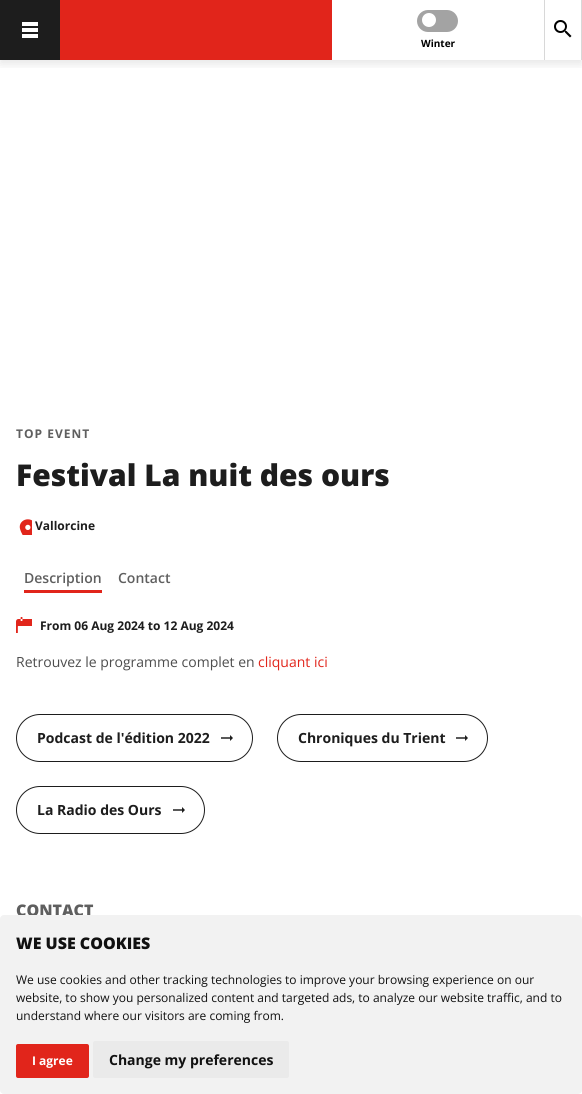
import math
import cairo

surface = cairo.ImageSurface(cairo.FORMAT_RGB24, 582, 1094)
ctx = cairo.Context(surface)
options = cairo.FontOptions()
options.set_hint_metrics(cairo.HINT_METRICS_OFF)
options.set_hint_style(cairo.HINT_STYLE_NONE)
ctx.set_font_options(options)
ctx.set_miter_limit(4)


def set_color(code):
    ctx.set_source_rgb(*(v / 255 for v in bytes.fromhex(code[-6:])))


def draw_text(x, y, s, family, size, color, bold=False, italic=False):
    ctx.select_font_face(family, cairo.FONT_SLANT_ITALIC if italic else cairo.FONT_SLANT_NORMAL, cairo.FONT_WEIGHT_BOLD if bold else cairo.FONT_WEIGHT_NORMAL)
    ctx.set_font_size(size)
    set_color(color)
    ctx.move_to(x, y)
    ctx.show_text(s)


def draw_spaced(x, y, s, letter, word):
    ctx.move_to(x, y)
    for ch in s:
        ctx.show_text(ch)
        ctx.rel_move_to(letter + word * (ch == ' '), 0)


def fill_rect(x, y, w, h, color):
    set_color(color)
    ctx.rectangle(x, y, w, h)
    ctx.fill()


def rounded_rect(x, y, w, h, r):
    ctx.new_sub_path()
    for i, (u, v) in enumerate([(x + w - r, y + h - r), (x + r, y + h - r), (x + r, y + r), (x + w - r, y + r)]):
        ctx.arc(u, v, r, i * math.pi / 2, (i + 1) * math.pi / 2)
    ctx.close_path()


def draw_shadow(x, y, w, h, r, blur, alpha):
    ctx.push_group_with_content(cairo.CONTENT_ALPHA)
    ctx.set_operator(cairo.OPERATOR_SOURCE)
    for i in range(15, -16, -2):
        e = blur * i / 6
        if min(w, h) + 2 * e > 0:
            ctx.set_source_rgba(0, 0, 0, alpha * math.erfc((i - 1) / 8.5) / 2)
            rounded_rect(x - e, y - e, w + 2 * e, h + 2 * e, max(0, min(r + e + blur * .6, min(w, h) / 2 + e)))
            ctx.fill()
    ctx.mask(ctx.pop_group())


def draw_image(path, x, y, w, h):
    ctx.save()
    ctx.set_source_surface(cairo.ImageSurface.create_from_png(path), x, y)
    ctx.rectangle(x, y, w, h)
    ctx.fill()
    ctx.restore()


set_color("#ffffff")
ctx.paint()
ctx.save()
ctx.rectangle(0, 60, 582, 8)
ctx.clip()
set_color("#000000")
draw_shadow(0, 4, 582, 60, 0, 5, 0.1)
ctx.restore()
fill_rect(60, 0, 272, 60, "#e1251b")
fill_rect(0, 0, 60, 60, "#1d1d1d")
fill_rect(22, 22, 16, 4, "#ffffff")
fill_rect(22, 28, 16, 4, "#ffffff")
fill_rect(22, 34, 16, 4, "#ffffff")
fill_rect(544, 0, 1, 60, "#d8d8d8")
set_color("#a3a3a3")
rounded_rect(417, 10, 41, 22, 11)
ctx.fill()
set_color("#ffffff")
ctx.arc(429, 20, 7, 0, 2 * math.pi)
ctx.fill()
draw_text(421, 47, "Winter", "Open Sans", 10, "#000000", bold=True)
fill_rect(581, 0, 1, 60, "#d8d8d8")
draw_image("assets/img1.png", 554, 20, 18, 18)
ctx.set_font_size(12)
set_color("#5f5f5f")
draw_spaced(16, 438, "TOP EVENT", 1, 0)
draw_text(16, 486, "Festival La nuit des ours", "Open Sans ExtraBold", 30, "#1d1d1d")
draw_image("assets/img2.png", 19, 519, 13, 16)
draw_text(35, 530, "Vallorcine", "Open Sans", 12, "#1d1d1d", bold=True)
fill_rect(24, 590, 78, 3, "#e1251b")
draw_text(24, 583, "Description", "Open Sans SemiBold", 14, "#5f5f5f")
draw_text(118, 583, "Contact", "Open Sans SemiBold", 14, "#5f5f5f")
draw_image("assets/img3.png", 16, 617, 16, 16)
draw_text(40, 630, "From 06 Aug 2024 to 12 Aug 2024", "Open Sans", 12, "#1d1d1d", bold=True)
draw_text(16, 667, "Retrouvez le programme complet en", "Open Sans", 14, "#4d4d4d")
draw_text(258, 667, "cliquant ici", "Open Sans", 14, "#e1251b")
rounded_rect(16.5, 714.5, 236, 47, 23.5)
set_color("#1d1d1d")
ctx.set_line_width(1)
ctx.stroke()
draw_text(37, 743, "Podcast de l'édition 2022", "Open Sans", 14, "#1d1d1d", bold=True)
draw_image("assets/img4.png", 221, 735, 12, 6)
rounded_rect(277.5, 714.5, 210, 47, 23.5)
ctx.stroke()
draw_text(298, 743, "Chroniques du Trient", "Open Sans", 14, "#1d1d1d", bold=True)
draw_image("assets/img4.png", 456, 735, 12, 6)
rounded_rect(16.5, 786.5, 188, 47, 23.5)
ctx.stroke()
draw_text(37, 815, "La Radio des Ours", "Open Sans", 14, "#1d1d1d", bold=True)
draw_image("assets/img4.png", 173, 807, 12, 6)
draw_text(16, 916, "CONTACT", "Open Sans ExtraBold", 16, "#5f5f5f")
set_color("#f2f2f2")
rounded_rect(0, 915, 582, 179, 4)
ctx.fill()
draw_text(16, 949, "WE USE COOKIES", "Open Sans ExtraBold", 16, "#111111")
draw_text(16, 984, "We use cookies and other tracking technologies to improve your browsing experience on our", "Open Sans", 12, "#111111")
draw_text(16, 1002, "website, to show you personalized content and targeted ads, to analyze our website traffic, and to", "Open Sans", 12, "#111111")
draw_text(16, 1020, "understand where our visitors are coming from.", "Open Sans", 12, "#111111")
set_color("#e1251b")
rounded_rect(16, 1044, 73, 34, 2)
ctx.fill()
draw_text(32, 1065, "I agree", "Open Sans", 12, "#ffffff", bold=True)
set_color("#eaeaea")
rounded_rect(93, 1041, 196, 37, 2)
ctx.fill()
draw_text(109, 1065, "Change my preferences", "Open Sans", 14, "#111111", bold=True)
surface.write_to_png("output.png")
